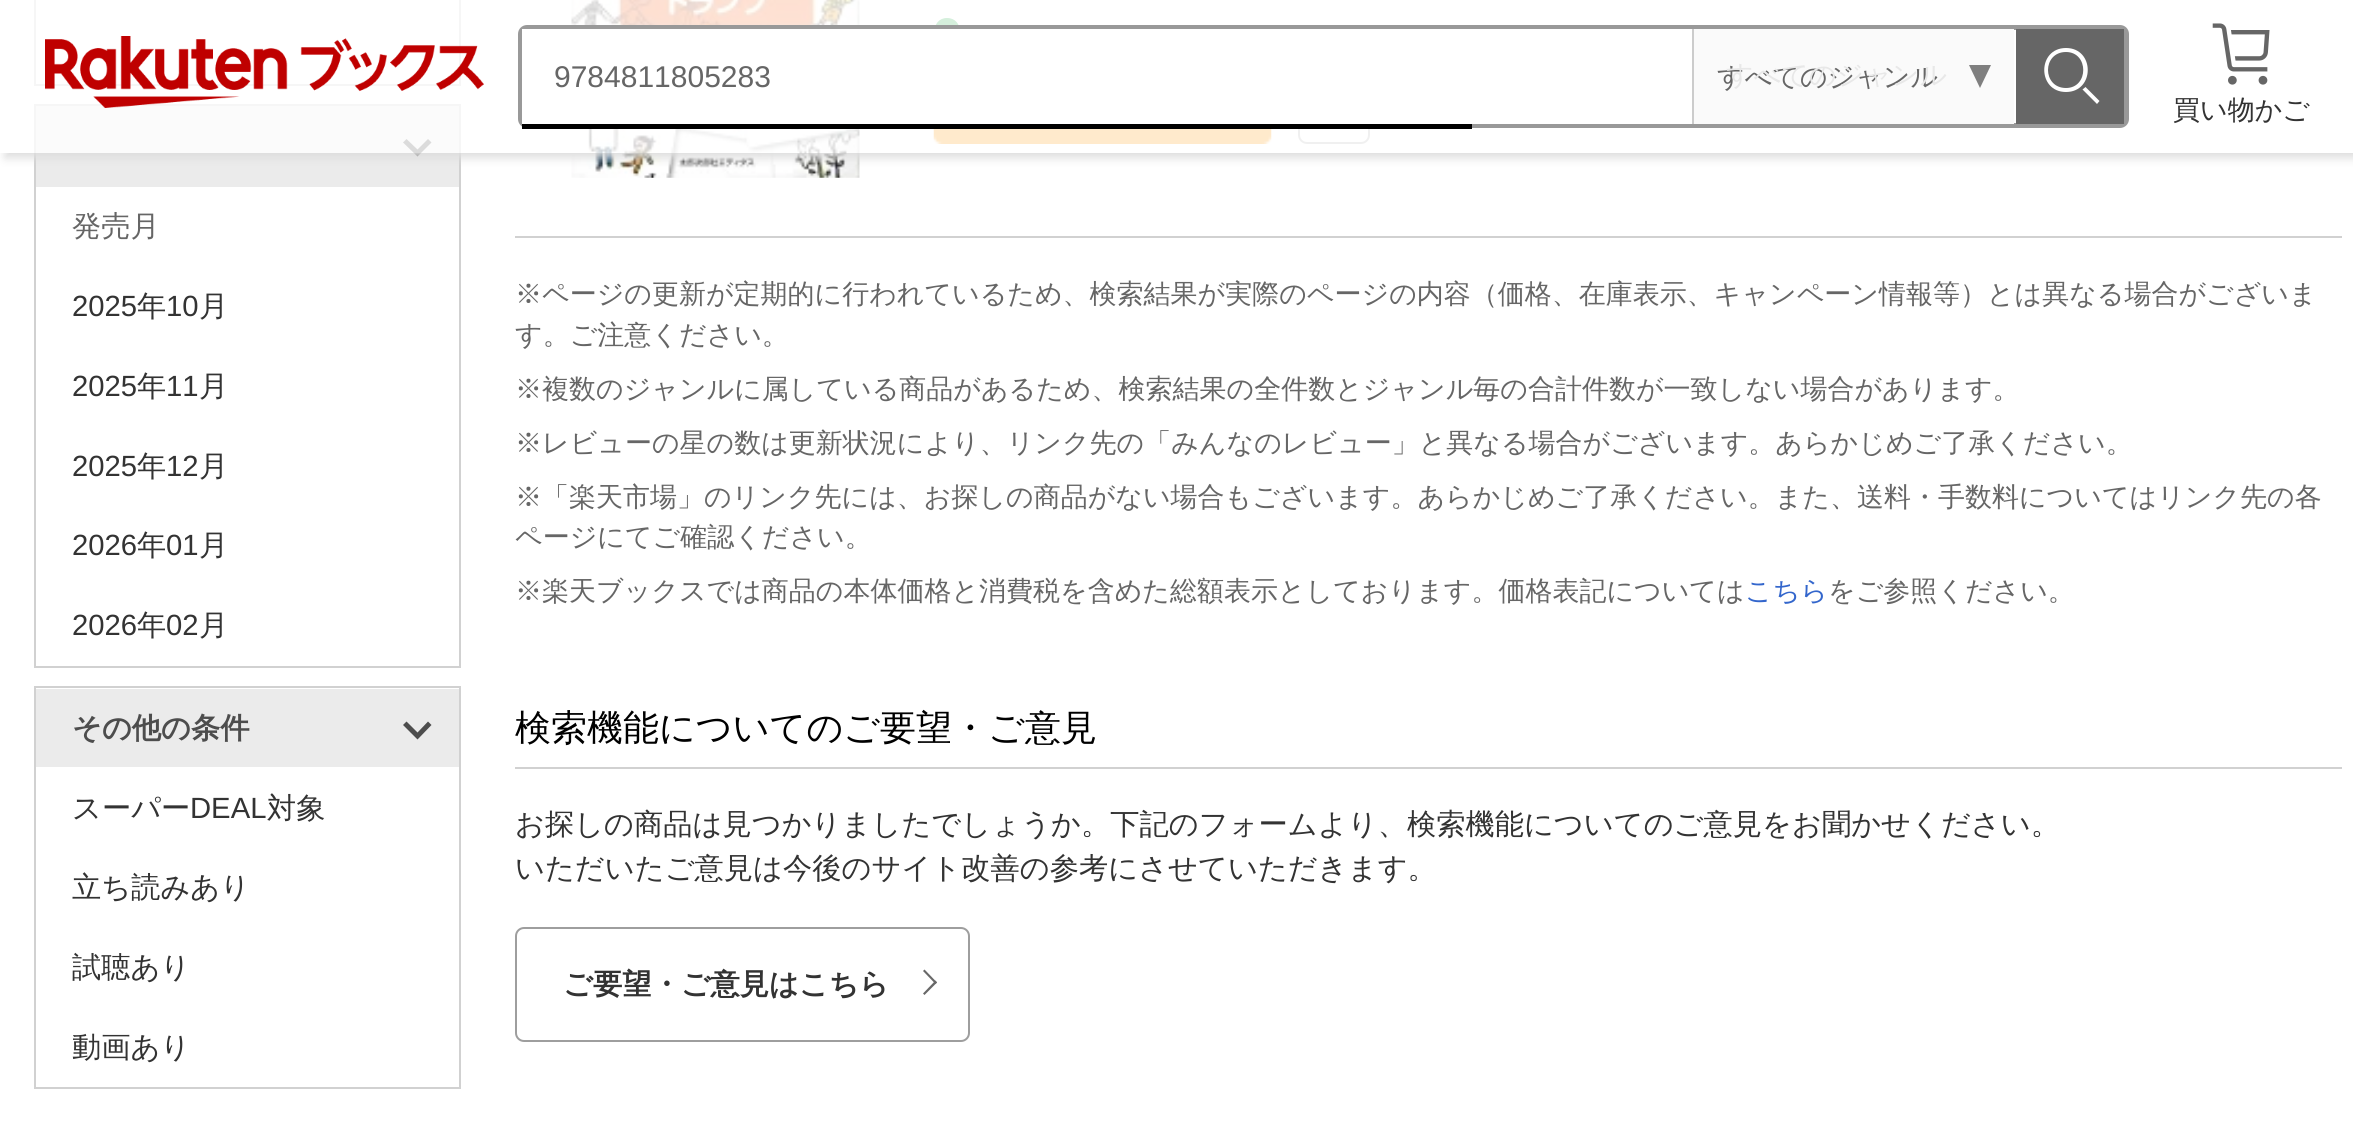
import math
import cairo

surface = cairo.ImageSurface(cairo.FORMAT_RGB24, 2353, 1124)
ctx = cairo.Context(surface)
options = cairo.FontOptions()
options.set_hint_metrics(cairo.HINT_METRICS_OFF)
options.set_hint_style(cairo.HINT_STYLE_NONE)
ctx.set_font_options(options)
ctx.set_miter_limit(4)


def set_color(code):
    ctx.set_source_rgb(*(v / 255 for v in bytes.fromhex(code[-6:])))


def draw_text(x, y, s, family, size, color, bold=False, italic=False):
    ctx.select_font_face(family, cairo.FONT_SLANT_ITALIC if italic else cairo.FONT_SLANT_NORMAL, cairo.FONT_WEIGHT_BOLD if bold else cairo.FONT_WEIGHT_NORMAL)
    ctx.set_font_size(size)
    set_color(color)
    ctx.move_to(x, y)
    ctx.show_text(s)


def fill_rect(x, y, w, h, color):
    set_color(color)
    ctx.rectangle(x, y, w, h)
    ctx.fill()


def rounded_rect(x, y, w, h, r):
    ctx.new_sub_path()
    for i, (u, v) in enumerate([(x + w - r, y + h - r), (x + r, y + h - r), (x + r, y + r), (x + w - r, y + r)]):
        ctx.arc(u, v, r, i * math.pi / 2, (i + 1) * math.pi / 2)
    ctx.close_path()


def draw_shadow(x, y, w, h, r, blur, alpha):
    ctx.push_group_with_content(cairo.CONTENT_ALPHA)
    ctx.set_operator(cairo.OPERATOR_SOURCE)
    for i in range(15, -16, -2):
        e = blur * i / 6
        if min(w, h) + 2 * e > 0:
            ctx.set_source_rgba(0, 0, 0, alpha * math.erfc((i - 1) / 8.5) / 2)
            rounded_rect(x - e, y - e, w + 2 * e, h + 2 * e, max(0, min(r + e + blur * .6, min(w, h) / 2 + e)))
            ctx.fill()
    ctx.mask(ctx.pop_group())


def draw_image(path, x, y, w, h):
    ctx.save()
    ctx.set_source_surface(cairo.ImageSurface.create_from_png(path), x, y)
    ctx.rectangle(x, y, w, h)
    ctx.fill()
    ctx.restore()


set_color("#ffffff")
ctx.paint()
ctx.rectangle(35, -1, 425, 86)
set_color("#d1d1d1")
ctx.stroke()
ctx.rectangle(35, 105, 425, 562)
ctx.stroke()
fill_rect(36, 106, 423, 81, "#ebebeb")
set_color("#4d4d4d")
ctx.new_path()
ctx.move_to(417.5, 156.5)
ctx.line_to(403, 142.5)
ctx.line_to(406.5, 139)
ctx.line_to(417.5, 149.5)
ctx.line_to(428, 139)
ctx.line_to(431.5, 142.5)
ctx.close_path()
ctx.fill()
draw_image("assets/img3.png", 571, 0, 289, 178)
set_color("#2cb051")
ctx.new_path()
ctx.move_to(947, 18)
ctx.curve_to(930.5, 18, 930.5, 43.5, 947, 43.5)
ctx.curve_to(964, 43.5, 964, 18, 947, 18)
ctx.close_path()
ctx.fill()
draw_image("assets/img4.png", 933, 129, 339, 15)
rounded_rect(1299, 73, 70, 70, 8)
set_color("#b6b6b6")
ctx.stroke()
ctx.save()
ctx.rectangle(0, 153, 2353, 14)
ctx.clip()
set_color("#dddddd")
draw_shadow(5, 5, 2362, 153, 0, 4.5, 1)
ctx.restore()
ctx.set_source_rgba(1, 1, 1, 0.8)
ctx.rectangle(34, 0, 1336, 153)
ctx.fill()
draw_image("assets/img1.png", 45, 36, 439, 72)
rounded_rect(520.5, 27.5, 1606, 98, 6.5)
set_color("#999999")
ctx.set_line_width(5)
ctx.stroke()
fill_rect(1694, 29, 320, 95, "#fafafa")
draw_text(1717, 86, "すべてのジャンル", "WenQuanYi Zen Hei Medium", 27, "#666666")
draw_text(1726, 84, "すべてのジャンル", "WenQuanYi Zen Hei Medium", 27, "#e8e8e8")
fill_rect(2016, 29, 108, 95, "#666666")
set_color("#ffffff")
ctx.set_fill_rule(cairo.FILL_RULE_EVEN_ODD)
ctx.new_path()
ctx.move_to(2066, 48)
ctx.curve_to(2037, 48, 2037, 92, 2066, 92)
ctx.curve_to(2095, 92, 2095, 48, 2066, 48)
ctx.move_to(2066, 88)
ctx.curve_to(2042, 88, 2042, 52, 2066, 52)
ctx.curve_to(2089, 52, 2089, 88, 2066, 88)
ctx.fill()
ctx.new_path()
ctx.move_to(2085.5, 87)
ctx.line_to(2082.5, 89.5)
ctx.line_to(2097, 104)
ctx.line_to(2099.5, 101)
ctx.close_path()
ctx.fill()
fill_rect(522, 29, 1170, 95, "#ffffff")
draw_text(554, 87, "9784811805283", "Liberation Sans", 30, "#666666")
fill_rect(522, 124, 950, 5, "#000000")
fill_rect(1692, 29, 2, 95, "#cccccc")
set_color("#7f7f7f")
ctx.set_fill_rule(cairo.FILL_RULE_WINDING)
ctx.new_path()
ctx.move_to(1969, 65)
ctx.line_to(1991, 65)
ctx.line_to(1980, 88)
ctx.close_path()
ctx.fill()
draw_image("assets/img2.png", 2212, 23, 58, 62)
draw_text(2173, 119, "買い物かご", "WenQuanYi Zen Hei Medium", 27, "#333333")
draw_text(72, 236, "発売月", "WenQuanYi Zen Hei Medium", 29.25, "#666666")
draw_text(72, 316, "2025", "Liberation Sans", 29.25, "#333333")
draw_text(137, 316, "年", "WenQuanYi Zen Hei Medium", 29.25, "#333333")
draw_text(166, 316, "10", "Liberation Sans", 29.25, "#333333")
draw_text(199, 316, "月", "WenQuanYi Zen Hei Medium", 29.25, "#333333")
draw_text(72, 396, "2025", "Liberation Sans", 29.25, "#333333")
draw_text(137, 396, "年", "WenQuanYi Zen Hei Medium", 29.25, "#333333")
draw_text(166, 396, "11", "Liberation Sans", 29.25, "#333333")
draw_text(199, 396, "月", "WenQuanYi Zen Hei Medium", 29.25, "#333333")
draw_text(72, 476, "2025", "Liberation Sans", 29.25, "#333333")
draw_text(137, 476, "年", "WenQuanYi Zen Hei Medium", 29.25, "#333333")
draw_text(166, 476, "12", "Liberation Sans", 29.25, "#333333")
draw_text(199, 476, "月", "WenQuanYi Zen Hei Medium", 29.25, "#333333")
draw_text(72, 555, "2026", "Liberation Sans", 29.25, "#333333")
draw_text(137, 555, "年", "WenQuanYi Zen Hei Medium", 29.25, "#333333")
draw_text(166, 555, "01", "Liberation Sans", 29.25, "#333333")
draw_text(199, 555, "月", "WenQuanYi Zen Hei Medium", 29.25, "#333333")
draw_text(72, 635, "2026", "Liberation Sans", 29.25, "#333333")
draw_text(137, 635, "年", "WenQuanYi Zen Hei Medium", 29.25, "#333333")
draw_text(166, 635, "02", "Liberation Sans", 29.25, "#333333")
draw_text(199, 635, "月", "WenQuanYi Zen Hei Medium", 29.25, "#333333")
ctx.rectangle(35, 687, 425, 401)
set_color("#d1d1d1")
ctx.set_line_width(2)
ctx.stroke()
fill_rect(36, 689, 423, 78, "#ebebeb")
draw_text(72, 738, "その他の条件", "WenQuanYi Zen Hei", 29.25, "#4d4d4d", bold=True)
ctx.new_path()
ctx.move_to(417.5, 739.5)
ctx.line_to(403, 725)
ctx.line_to(406.5, 721.5)
ctx.line_to(417.5, 732.5)
ctx.line_to(428, 721.5)
ctx.line_to(431.5, 725)
ctx.close_path()
ctx.fill()
draw_text(72, 818, "スーパー", "WenQuanYi Zen Hei Medium", 29.25, "#333333")
draw_text(190, 818, "DEAL", "Liberation Sans", 29.25, "#333333")
draw_text(267, 818, "対象", "WenQuanYi Zen Hei Medium", 29.25, "#333333")
draw_text(72, 897, "立ち読みあり", "WenQuanYi Zen Hei Medium", 29.25, "#333333")
draw_text(72, 977, "試聴あり", "WenQuanYi Zen Hei Medium", 29.25, "#333333")
draw_text(72, 1057, "動画あり", "WenQuanYi Zen Hei Medium", 29.25, "#333333")
fill_rect(515, 236, 1827, 2, "#d1d1d1")
draw_text(515, 303, "※ページの更新が定期的に行われているため、検索結果が実際のページの内容（価格、在庫表示、キャンペーン情報等）とは異なる場合がございま", "WenQuanYi Zen Hei Medium", 27, "#666666")
draw_text(515, 344, "す。ご注意ください。", "WenQuanYi Zen Hei Medium", 27, "#666666")
draw_text(515, 398, "※複数のジャンルに属している商品があるため、検索結果の全件数とジャンル毎の合計件数が一致しない場合があります。", "WenQuanYi Zen Hei Medium", 27, "#666666")
draw_text(515, 452, "※レビューの星の数は更新状況により、リンク先の「みんなのレビュー」と異なる場合がございます。あらかじめご了承ください。", "WenQuanYi Zen Hei Medium", 27, "#666666")
draw_text(515, 506, "※「楽天市場」のリンク先には、お探しの商品がない場合もございます。あらかじめご了承ください。また、送料・手数料についてはリンク先の各", "WenQuanYi Zen Hei Medium", 27, "#666666")
draw_text(515, 546, "ページにてご確認ください。", "WenQuanYi Zen Hei Medium", 27, "#666666")
draw_text(515, 600, "※楽天ブックスでは商品の本体価格と消費税を含めた総額表示としております。価格表記については", "WenQuanYi Zen Hei Medium", 27, "#666666")
draw_text(1745, 600, "こちら", "WenQuanYi Zen Hei Medium", 27, "#3366cc")
draw_text(1828, 600, "をご参照ください。", "WenQuanYi Zen Hei Medium", 27, "#666666")
fill_rect(515, 767, 1827, 2, "#d1d1d1")
draw_text(515, 740, "検索機能についてのご要望・ご意見", "WenQuanYi Zen Hei Medium", 36, "#000000")
draw_text(515, 834, "お探しの商品は見つかりましたでしょうか。下記のフォームより、検索機能についてのご意見をお聞かせください。", "WenQuanYi Zen Hei Medium", 29.25, "#333333")
draw_text(515, 878, "いただいたご意見は今後のサイト改善の参考にさせていただきます。", "WenQuanYi Zen Hei Medium", 29.25, "#333333")
rounded_rect(516, 928, 453, 113, 8)
set_color("#9e9e9e")
ctx.stroke()
draw_text(563, 994, "ご要望・ご意見はこちら", "WenQuanYi Zen Hei", 29.25, "#333333", bold=True)
set_color("#686868")
ctx.new_path()
ctx.move_to(935.5, 984)
ctx.line_to(923, 971)
ctx.line_to(924.5, 969.5)
ctx.line_to(937, 982.5)
ctx.close_path()
ctx.fill()
ctx.new_path()
ctx.move_to(924.5, 995)
ctx.line_to(923, 993.5)
ctx.line_to(935.5, 980.5)
ctx.line_to(937, 982.5)
ctx.close_path()
ctx.fill()
surface.write_to_png("output.png")
